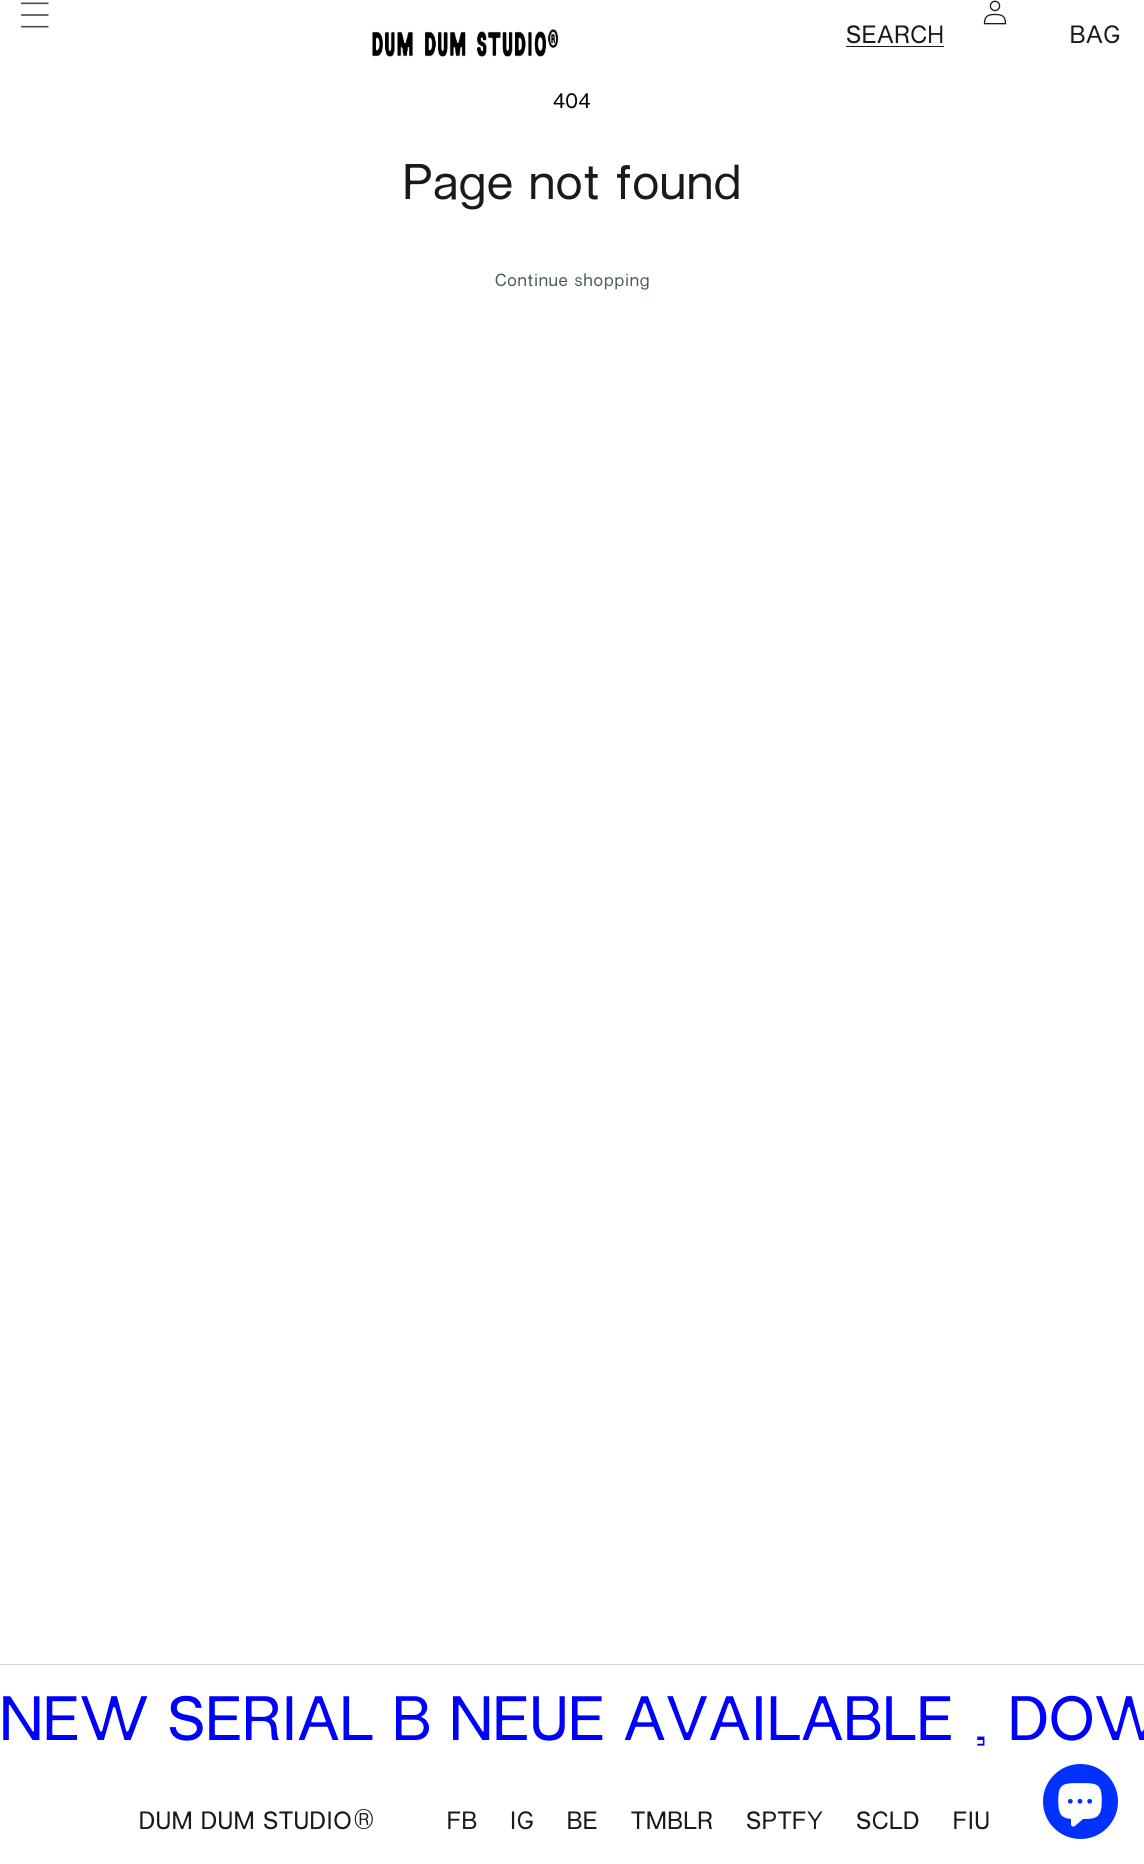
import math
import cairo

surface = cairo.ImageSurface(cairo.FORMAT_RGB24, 1144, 1864)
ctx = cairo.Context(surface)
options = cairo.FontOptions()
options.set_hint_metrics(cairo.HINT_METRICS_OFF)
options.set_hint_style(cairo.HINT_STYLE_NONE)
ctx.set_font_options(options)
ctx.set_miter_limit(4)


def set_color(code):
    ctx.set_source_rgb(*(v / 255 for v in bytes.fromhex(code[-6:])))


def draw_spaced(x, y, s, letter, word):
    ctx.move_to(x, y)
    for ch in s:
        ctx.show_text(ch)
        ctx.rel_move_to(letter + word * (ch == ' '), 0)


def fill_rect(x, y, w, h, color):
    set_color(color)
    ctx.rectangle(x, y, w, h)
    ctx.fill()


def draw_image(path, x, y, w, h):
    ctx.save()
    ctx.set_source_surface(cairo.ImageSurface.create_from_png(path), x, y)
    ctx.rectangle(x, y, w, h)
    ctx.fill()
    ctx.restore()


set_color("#ffffff")
ctx.paint()
draw_image("assets/img1.png", 20, 2, 29, 26)
draw_image("assets/img2.png", 372, 29, 186, 28)
draw_image("assets/img3.png", 983, 0, 24, 25)
ctx.select_font_face("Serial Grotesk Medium")
ctx.set_font_size(25)
set_color("#1a1b18")
draw_spaced(846, 43, "SEARCH", 0.75, 0)
fill_rect(846, 46, 98, 1, "#1a1b18")
draw_spaced(1070, 43, "BAG", 0.75, 0)
ctx.set_font_size(21)
set_color("#000000")
draw_spaced(553, 108, "404", 0.75, 0)
ctx.set_font_size(50)
set_color("#1a1b18")
draw_spaced(403, 199, "Page not found", 0.75, 0)
ctx.set_font_size(17.5)
set_color("#445958")
draw_spaced(495, 286, "Continue shopping", 0.75, 0)
fill_rect(0, 1664, 1144, 1, "#d1d1d1")
ctx.set_font_size(62.5)
set_color("#0000ff")
draw_spaced(0, 1740, "NEW SERIAL B NEUE AVAILABLE , DOW", 0.75, 0)
ctx.set_font_size(25)
set_color("#1a1b18")
draw_spaced(139, 1829, "DUM DUM STUDIO®", 0.75, 0)
draw_spaced(447, 1829, "FB", 0.75, 0)
draw_spaced(510, 1829, "IG", 0.75, 0)
draw_spaced(567, 1829, "BE", 0.75, 0)
draw_spaced(631, 1829, "TMBLR", 0.75, 0)
draw_spaced(746, 1829, "SPTFY", 0.75, 0)
draw_spaced(856, 1829, "SCLD", 0.75, 0)
draw_spaced(953, 1829, "FIU", 0.75, 0)
set_color("#0031ff")
ctx.new_path()
ctx.arc(1080.5, 1801.5, 37.5, 0, 2 * math.pi)
ctx.fill()
draw_image("assets/img4.png", 1058, 1783, 44, 44)
surface.write_to_png("output.png")
